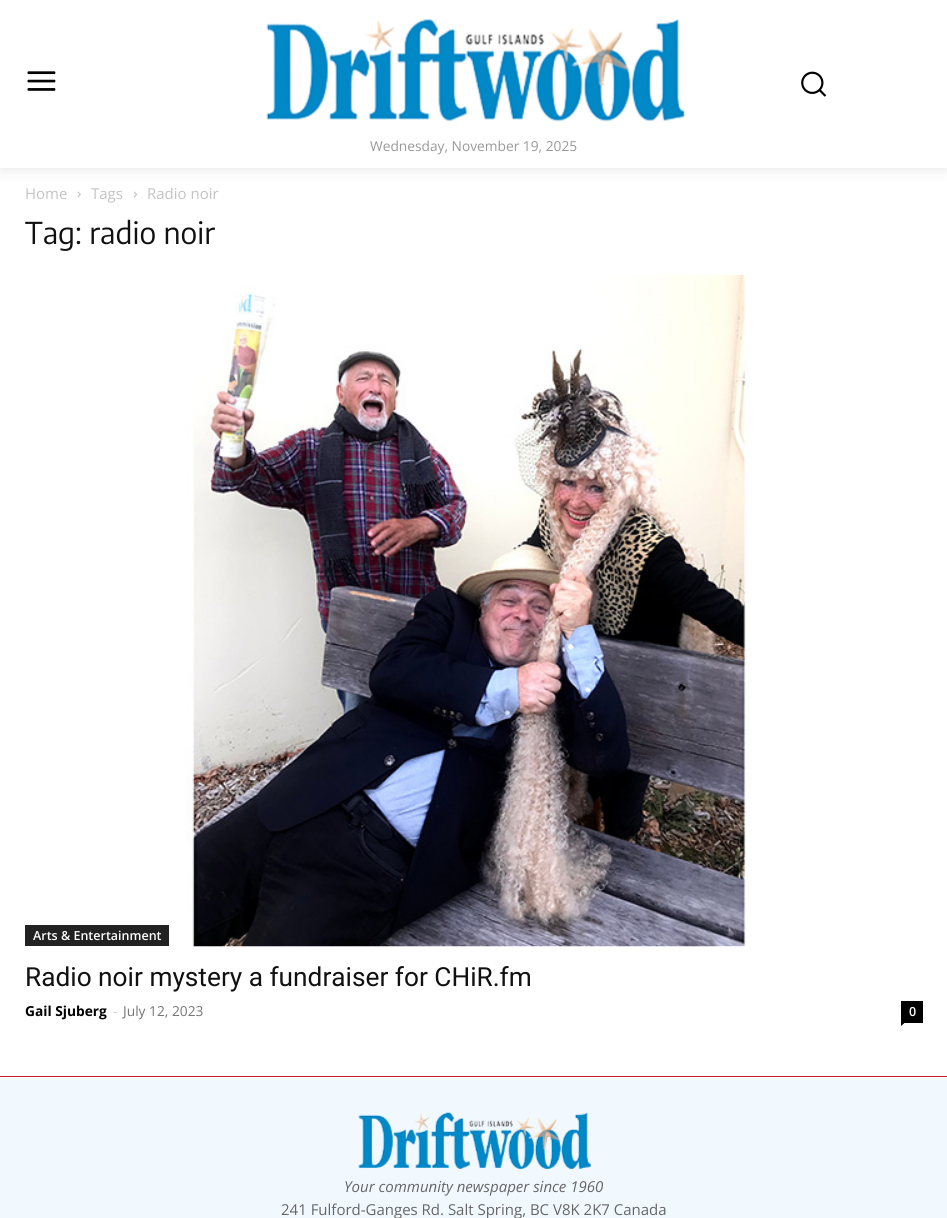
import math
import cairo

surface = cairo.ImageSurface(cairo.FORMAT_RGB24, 947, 1218)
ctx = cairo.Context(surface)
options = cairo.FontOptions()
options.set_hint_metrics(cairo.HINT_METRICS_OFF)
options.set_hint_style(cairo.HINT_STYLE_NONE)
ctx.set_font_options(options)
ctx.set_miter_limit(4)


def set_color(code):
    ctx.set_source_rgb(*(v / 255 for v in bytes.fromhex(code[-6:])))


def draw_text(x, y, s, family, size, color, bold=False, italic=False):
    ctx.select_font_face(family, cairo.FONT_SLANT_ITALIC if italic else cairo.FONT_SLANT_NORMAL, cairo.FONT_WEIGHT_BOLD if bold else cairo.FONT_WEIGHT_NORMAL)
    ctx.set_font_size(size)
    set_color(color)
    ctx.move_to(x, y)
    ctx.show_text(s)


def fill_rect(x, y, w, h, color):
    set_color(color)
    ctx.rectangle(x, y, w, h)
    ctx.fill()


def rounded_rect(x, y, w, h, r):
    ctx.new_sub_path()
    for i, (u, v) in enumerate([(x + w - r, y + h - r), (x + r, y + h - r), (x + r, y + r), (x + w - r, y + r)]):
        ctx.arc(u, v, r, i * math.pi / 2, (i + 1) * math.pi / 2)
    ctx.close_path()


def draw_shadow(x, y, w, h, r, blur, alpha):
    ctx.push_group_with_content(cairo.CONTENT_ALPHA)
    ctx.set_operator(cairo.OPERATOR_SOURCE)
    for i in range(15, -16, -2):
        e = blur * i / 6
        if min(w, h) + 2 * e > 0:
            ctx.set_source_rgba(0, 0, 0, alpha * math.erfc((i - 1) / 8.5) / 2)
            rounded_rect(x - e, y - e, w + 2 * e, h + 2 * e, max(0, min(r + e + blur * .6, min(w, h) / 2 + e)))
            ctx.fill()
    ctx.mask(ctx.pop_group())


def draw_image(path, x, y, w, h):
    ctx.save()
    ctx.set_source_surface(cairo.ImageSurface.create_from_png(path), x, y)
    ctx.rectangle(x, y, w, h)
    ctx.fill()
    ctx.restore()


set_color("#ffffff")
ctx.paint()
draw_image("assets/img1.png", 27, 71, 29, 20)
draw_image("assets/img2.png", 801, 71, 26, 26)
draw_image("assets/img3.png", 266, 19, 420, 103)
ctx.save()
ctx.set_fill_rule(cairo.FILL_RULE_EVEN_ODD)
ctx.new_path()
ctx.move_to(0, 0)
ctx.line_to(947, 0)
ctx.line_to(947, 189)
ctx.line_to(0, 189)
ctx.close_path()
ctx.move_to(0, 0)
ctx.line_to(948, 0)
ctx.line_to(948, 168)
ctx.line_to(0, 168)
ctx.close_path()
ctx.clip()
set_color("#000000")
draw_shadow(0, 3, 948, 167, 0, 6, 0.09)
ctx.restore()
draw_text(370, 151, "Wednesday, November 19, 2025", "Open Sans", 13.75, "#999999")
draw_text(25, 199, "Home", "Open Sans", 15, "#c3c3c3")
draw_image("assets/img4.png", 77, 191, 4, 7)
draw_text(91, 199, "Tags", "Open Sans", 15, "#c3c3c3")
draw_image("assets/img5.png", 133, 191, 4, 7)
draw_text(147, 199, "Radio noir", "Open Sans", 15, "#c3c3c3")
draw_text(25, 244, "Tag: radio noir", "Encode Sans Condensed", 30, "#111111")
fill_rect(25, 925, 144, 21, "#222222")
draw_text(33, 940, "Arts & Entertainment", "Open Sans SemiBold", 12.5, "#ffffff")
draw_image("assets/img6.png", 185, 275, 561, 672)
draw_text(25, 986, "Radio noir mystery a fundraiser for CHiR.fm", "Roboto", 26.25, "#111111")
draw_text(25, 1016, "Gail Sjuberg", "Open Sans", 13.75, "#000000", bold=True)
draw_text(113, 1016, "-", "Open Sans", 13.75, "#cccccc")
draw_text(123, 1016, "July 12, 2023", "Open Sans", 13.75, "#767676")
fill_rect(901, 1001, 22, 22, "#000000")
draw_text(909, 1016, "0", "Open Sans SemiBold", 12.5, "#ffffff")
set_color("#000000")
ctx.new_path()
ctx.move_to(901, 1022.5)
ctx.line_to(905, 1022.5)
ctx.line_to(901, 1026)
ctx.close_path()
ctx.fill()
fill_rect(0, 1076, 947, 1, "#c7162d")
fill_rect(0, 1078, 947, 140, "#f1f9ff")
draw_image("assets/img7.png", 358, 1112, 234, 58)
draw_text(344, 1192, "Your community newspaper since 1960", "Open Sans", 15, "#666666", italic=True)
draw_text(281, 1215, "241 Fulford-Ganges Rd. Salt Spring, BC V8K 2K7 Canada", "Open Sans", 15, "#666666")
surface.write_to_png("output.png")
